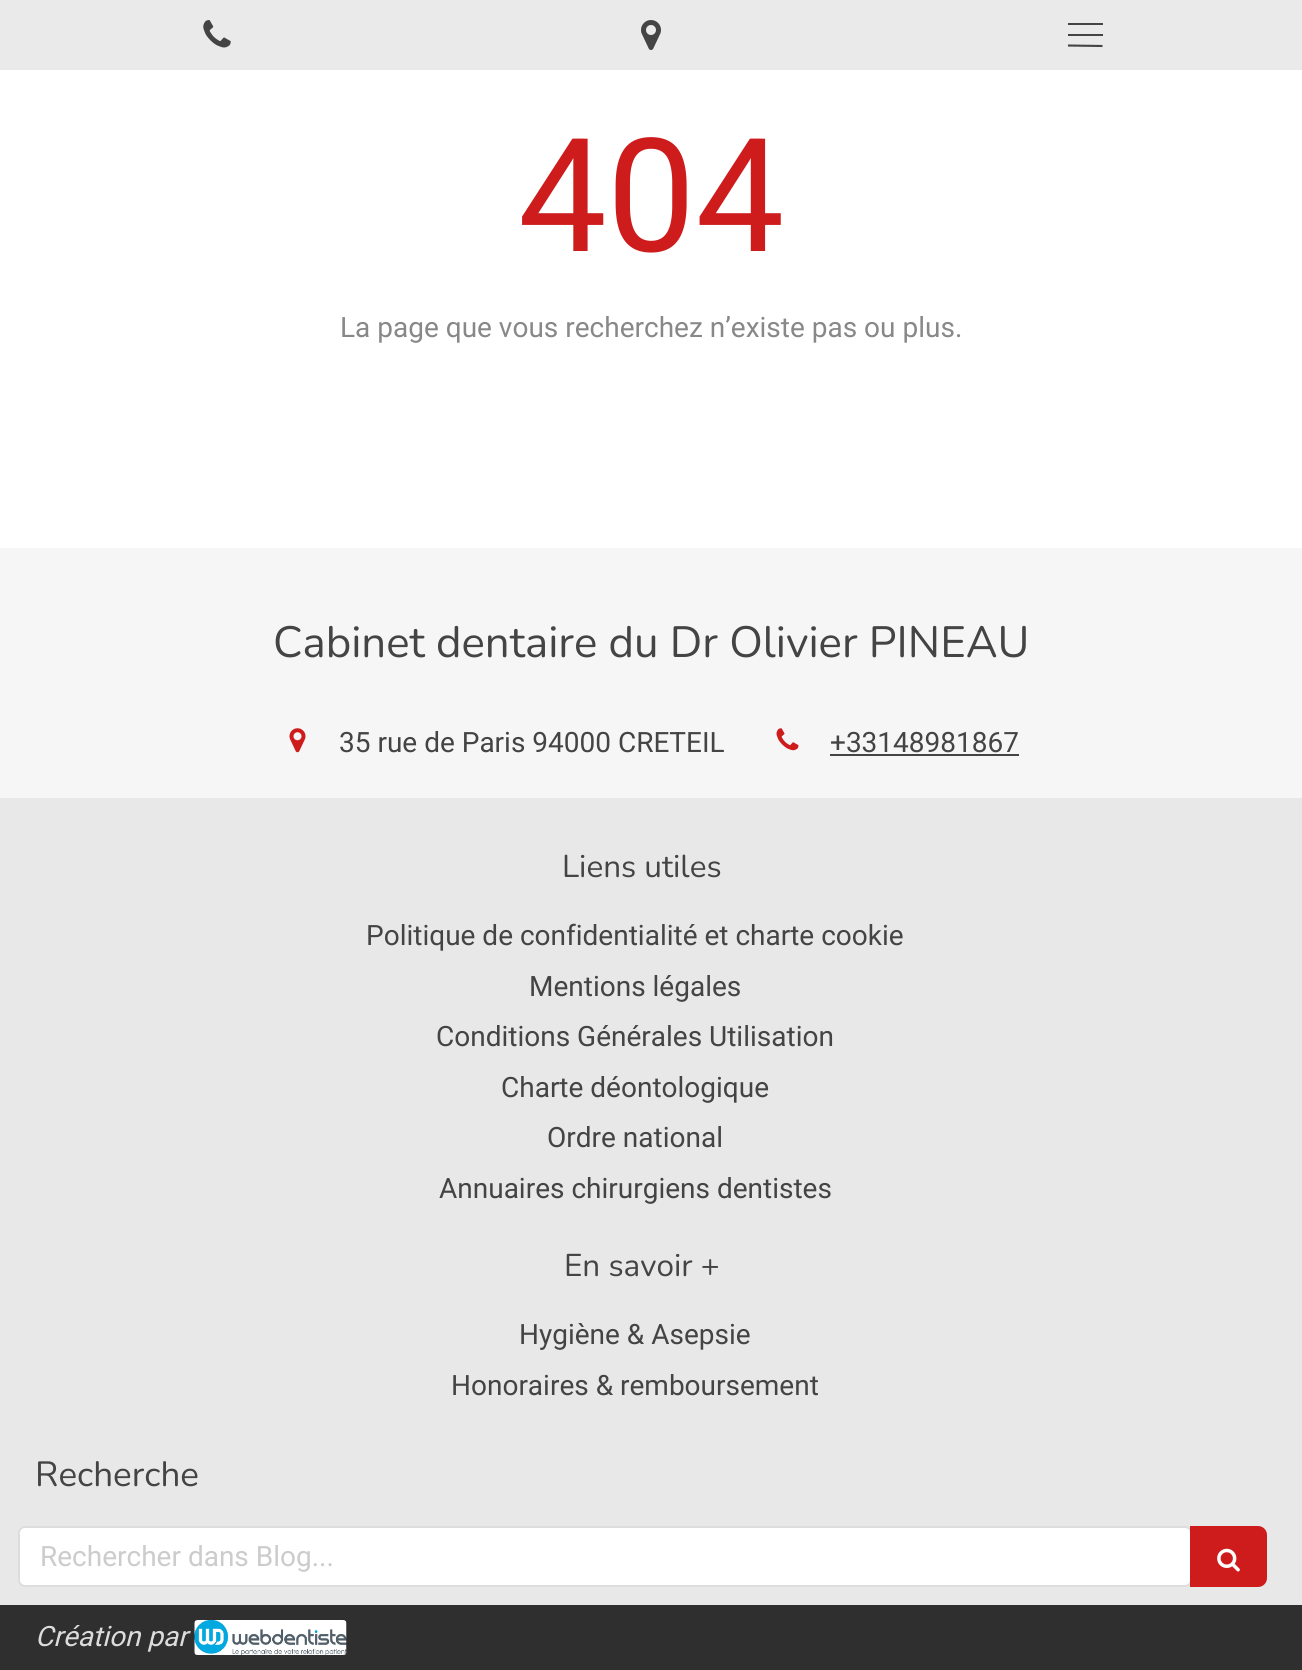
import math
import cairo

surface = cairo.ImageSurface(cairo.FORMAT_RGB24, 1302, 1670)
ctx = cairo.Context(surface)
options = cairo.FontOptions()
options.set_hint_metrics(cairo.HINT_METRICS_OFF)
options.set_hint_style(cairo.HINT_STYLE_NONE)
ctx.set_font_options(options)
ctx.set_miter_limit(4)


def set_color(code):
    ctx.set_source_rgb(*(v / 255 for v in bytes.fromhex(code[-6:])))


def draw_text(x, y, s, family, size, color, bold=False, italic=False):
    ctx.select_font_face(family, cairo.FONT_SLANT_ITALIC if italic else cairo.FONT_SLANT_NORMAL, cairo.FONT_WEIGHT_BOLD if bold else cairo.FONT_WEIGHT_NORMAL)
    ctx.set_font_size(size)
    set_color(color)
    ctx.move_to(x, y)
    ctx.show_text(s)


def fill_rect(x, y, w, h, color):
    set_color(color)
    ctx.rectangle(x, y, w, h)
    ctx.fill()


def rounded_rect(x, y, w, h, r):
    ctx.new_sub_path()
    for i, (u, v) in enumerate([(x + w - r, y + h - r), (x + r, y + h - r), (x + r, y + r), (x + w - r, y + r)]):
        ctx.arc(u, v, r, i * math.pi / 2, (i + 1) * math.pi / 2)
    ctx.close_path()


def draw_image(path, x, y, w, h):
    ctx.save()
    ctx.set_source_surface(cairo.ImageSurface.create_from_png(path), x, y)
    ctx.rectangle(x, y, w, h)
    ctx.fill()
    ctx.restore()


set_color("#ffffff")
ctx.paint()
fill_rect(0, 0, 1302, 70, "#eaeaea")
draw_image("assets/img1.png", 203, 20, 28, 28)
draw_image("assets/img2.png", 641, 20, 20, 30)
fill_rect(1068, 23, 35, 2, "#444444")
fill_rect(1068, 34, 35, 2, "#444444")
ctx.save()
ctx.rectangle(1068, 18, 35, 35)
ctx.clip()
ctx.new_path()
ctx.move_to(1067.5, 45.5)
ctx.line_to(1102.5, 46)
ctx.set_line_width(2.1)
ctx.stroke()
ctx.restore()
draw_text(518, 251, "404", "Roboto", 158, "#ce1c1c")
draw_text(340, 337, "La page que vous recherchez n’existe pas ou plus.", "Roboto", 28, "#888888")
fill_rect(0, 1605, 1302, 65, "#2f2f2f")
fill_rect(0, 548, 1302, 250, "#f6f6f6")
draw_text(273, 657, "Cabinet dentaire du Dr Olivier PINEAU", "Nunito", 43.75, "#444444")
draw_image("assets/img3.png", 289, 728, 17, 25)
draw_text(339, 752, "35 rue de Paris 94000 CRETEIL", "Roboto", 28, "#444444")
draw_image("assets/img4.png", 776, 728, 23, 23)
draw_text(830, 752, "+33148981867", "Roboto", 28, "#444444")
fill_rect(830, 754, 189, 2, "#444444")
fill_rect(0, 798, 1302, 807, "#e8e8e8")
draw_text(562, 877, "Liens utiles", "Nunito", 31.5, "#444444")
draw_text(366, 945, "Politique de confidentialité et charte cookie", "Roboto", 28, "#444444")
draw_text(529, 996, "Mentions légales", "Roboto", 28, "#444444")
draw_text(436, 1046, "Conditions Générales Utilisation", "Roboto", 28, "#444444")
draw_text(501, 1097, "Charte déontologique", "Roboto", 28, "#444444")
draw_text(547, 1147, "Ordre national", "Roboto", 28, "#444444")
draw_text(439, 1198, "Annuaires chirurgiens dentistes", "Roboto", 28, "#444444")
draw_text(564, 1276, "En savoir +", "Nunito", 31.5, "#444444")
draw_text(519, 1344, "Hygiène & Asepsie", "Roboto", 28, "#444444")
draw_text(451, 1395, "Honoraires & remboursement", "Roboto", 28, "#444444")
draw_text(35, 1486, "Recherche", "Nunito", 35, "#444444")
set_color("#ffffff")
rounded_rect(19, 1527, 1172, 59, 6)
ctx.fill_preserve()
set_color("#dddddd")
ctx.stroke()
draw_text(40, 1566, "Rechercher dans Blog...", "Roboto", 28, "#cccccc")
set_color("#ce1c1c")
ctx.new_path()
ctx.move_to(1190, 1526)
ctx.line_to(1258, 1526)
ctx.curve_to(1263, 1526, 1267, 1530, 1267, 1535)
ctx.line_to(1267, 1578)
ctx.curve_to(1267, 1583, 1263, 1587, 1258, 1587)
ctx.line_to(1190, 1587)
ctx.close_path()
ctx.fill()
draw_image("assets/img5.png", 1217, 1548, 23, 24)
draw_text(35, 1646, "Création par", "Roboto", 28, "#dcdcdc", italic=True)
draw_image("assets/img6.png", 194, 1620, 153, 35)
surface.write_to_png("output.png")
